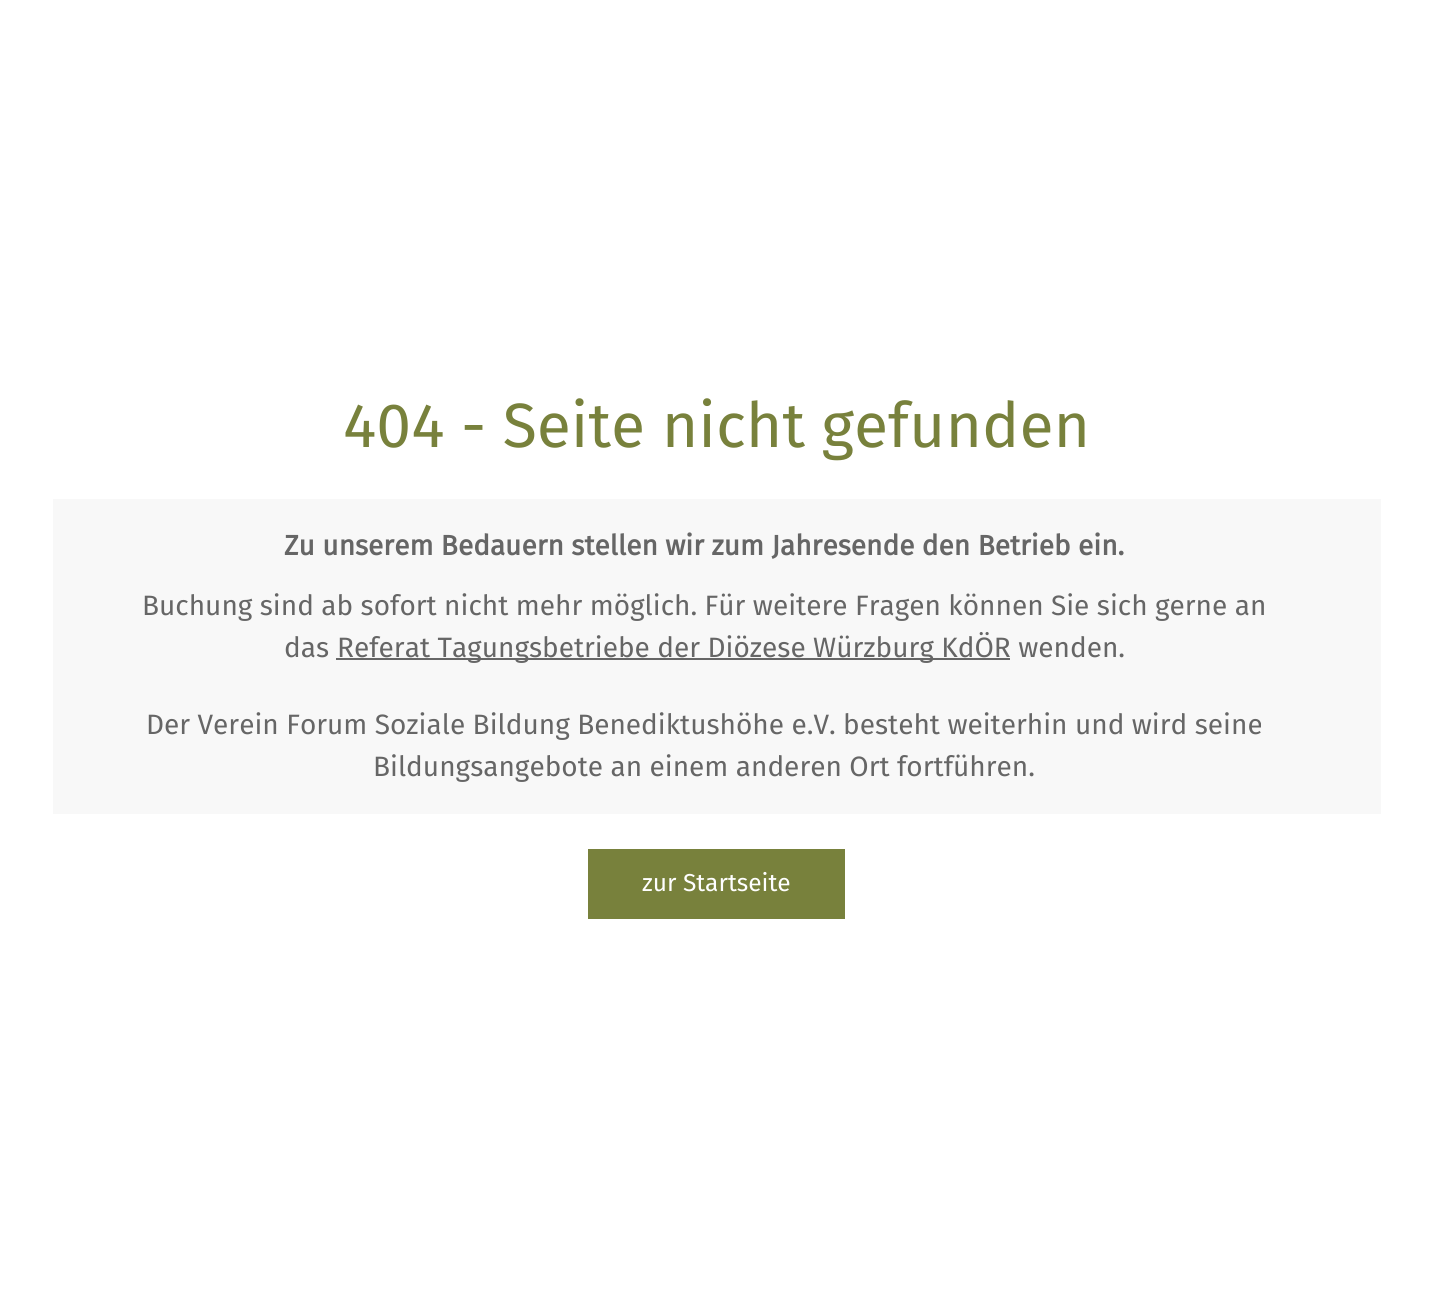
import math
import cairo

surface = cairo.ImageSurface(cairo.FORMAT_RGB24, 1433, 1309)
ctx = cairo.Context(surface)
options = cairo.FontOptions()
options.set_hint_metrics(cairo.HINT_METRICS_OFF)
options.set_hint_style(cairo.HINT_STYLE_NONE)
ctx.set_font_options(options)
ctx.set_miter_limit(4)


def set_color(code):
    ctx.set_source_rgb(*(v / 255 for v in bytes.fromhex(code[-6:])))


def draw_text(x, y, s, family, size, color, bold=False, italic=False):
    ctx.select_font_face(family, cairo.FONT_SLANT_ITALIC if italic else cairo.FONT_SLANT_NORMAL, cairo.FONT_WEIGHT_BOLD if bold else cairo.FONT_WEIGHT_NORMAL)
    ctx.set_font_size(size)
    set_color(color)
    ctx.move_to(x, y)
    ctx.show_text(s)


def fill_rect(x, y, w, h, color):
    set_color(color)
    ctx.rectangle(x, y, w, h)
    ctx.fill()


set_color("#ffffff")
ctx.paint()
draw_text(343, 447, "404 - Seite nicht gefunden", "Fira Sans", 62.5, "#78813c")
fill_rect(53, 499, 1328, 315, "#f8f8f8")
draw_text(284, 555, "Zu unserem Bedauern stellen wir zum Jahresende den Betrieb ein.", "Fira Sans", 28, "#666666", bold=True)
draw_text(142, 615, "Buchung sind ab sofort nicht mehr möglich. Für weitere Fragen können Sie sich gerne an", "Fira Sans", 28, "#666666")
draw_text(284, 657, "das", "Fira Sans", 28, "#666666")
fill_rect(336, 658, 674, 2, "#666666")
draw_text(337, 657, "Referat Tagungsbetriebe der Diözese Würzburg KdÖR wenden.", "Fira Sans", 28, "#666666")
draw_text(146, 734, "Der Verein Forum Soziale Bildung Benediktushöhe e.V. besteht weiterhin und wird seine", "Fira Sans", 28, "#666666")
draw_text(373, 776, "Bildungsangebote an einem anderen Ort fortführen.", "Fira Sans", 28, "#666666")
fill_rect(588, 849, 257, 70, "#78813c")
draw_text(642, 891, "zur Startseite", "Fira Sans", 24.5, "#ffffff")
surface.write_to_png("output.png")
